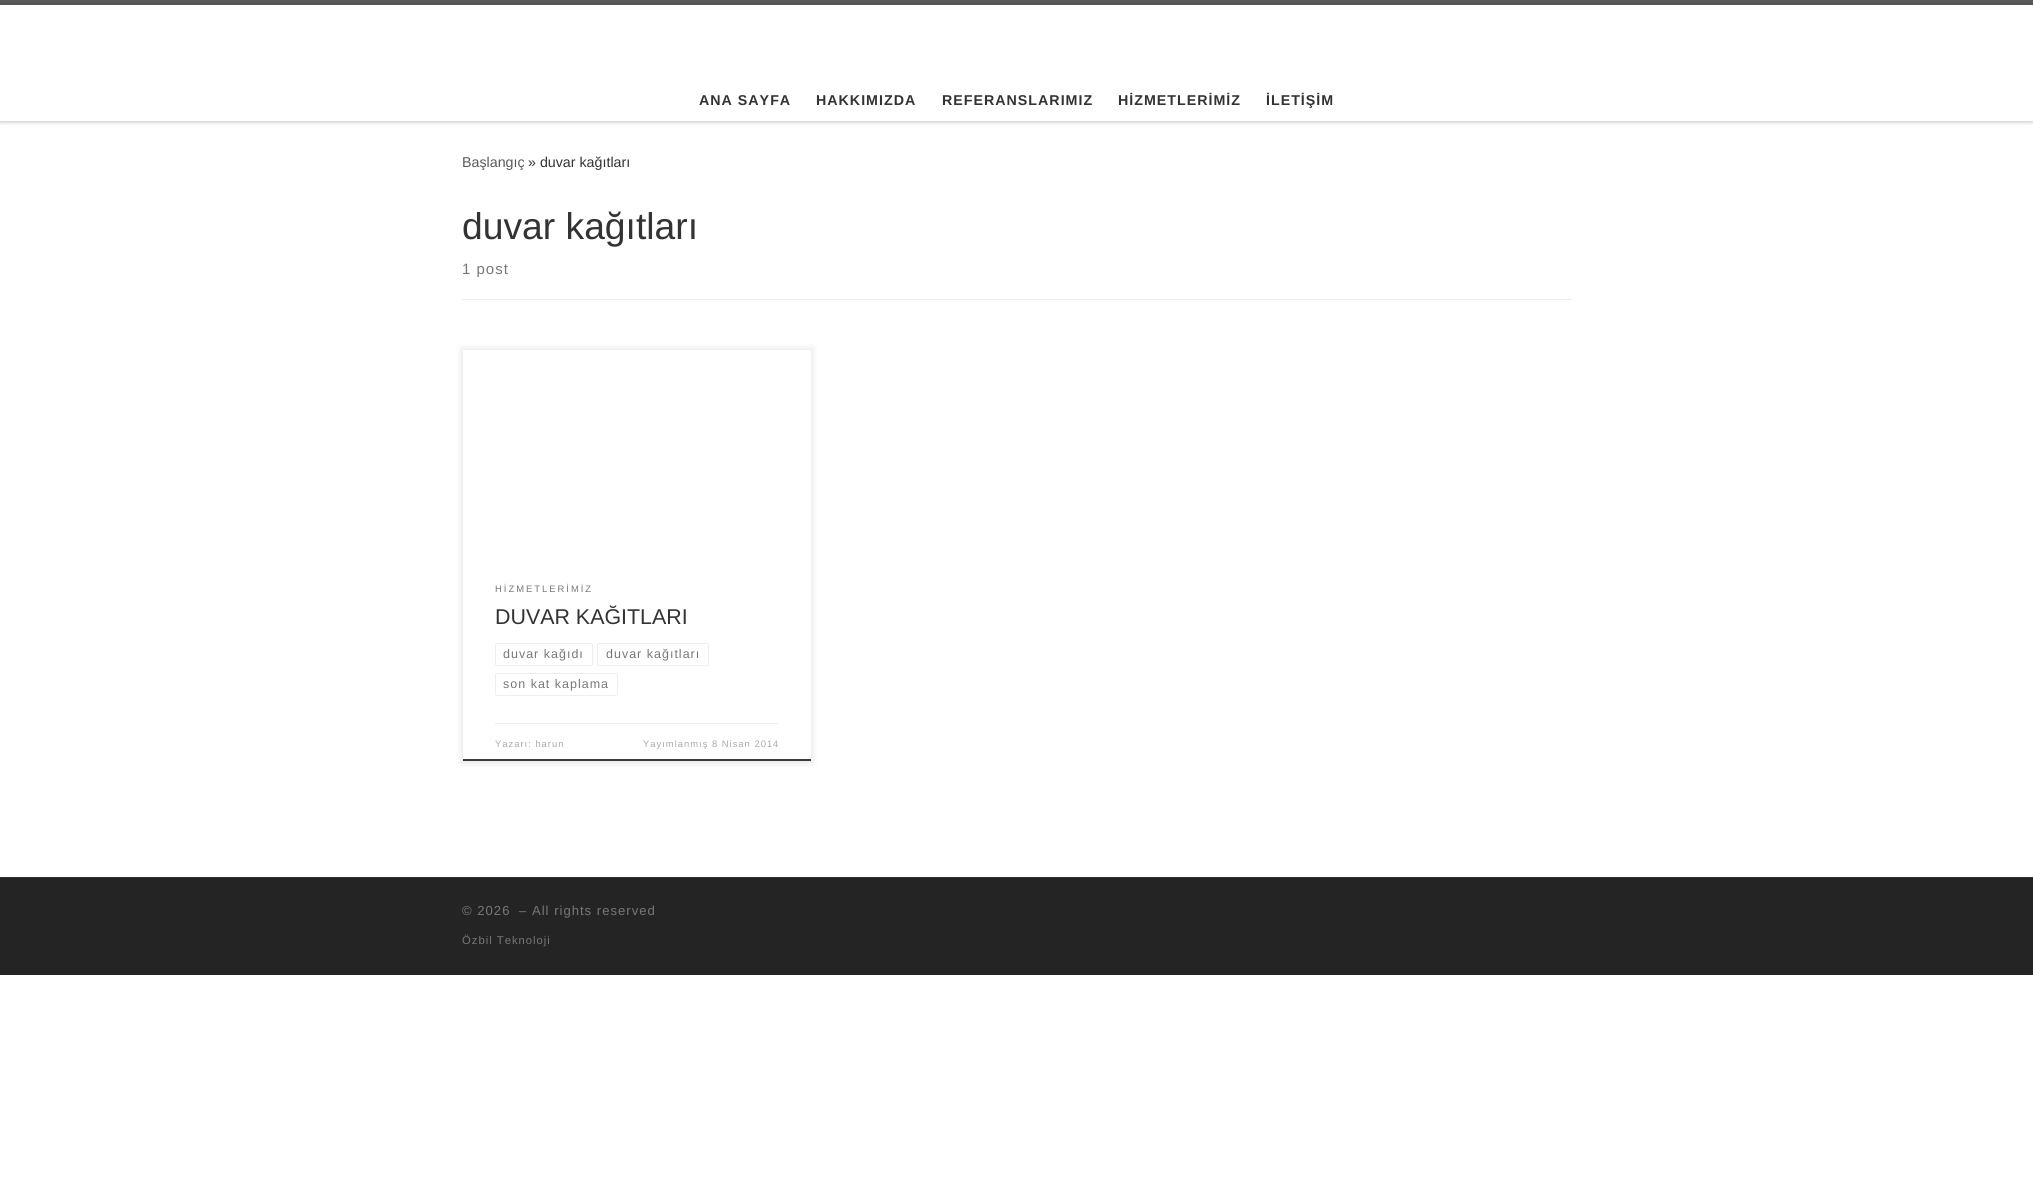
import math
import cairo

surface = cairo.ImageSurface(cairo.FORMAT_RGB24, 2033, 1177)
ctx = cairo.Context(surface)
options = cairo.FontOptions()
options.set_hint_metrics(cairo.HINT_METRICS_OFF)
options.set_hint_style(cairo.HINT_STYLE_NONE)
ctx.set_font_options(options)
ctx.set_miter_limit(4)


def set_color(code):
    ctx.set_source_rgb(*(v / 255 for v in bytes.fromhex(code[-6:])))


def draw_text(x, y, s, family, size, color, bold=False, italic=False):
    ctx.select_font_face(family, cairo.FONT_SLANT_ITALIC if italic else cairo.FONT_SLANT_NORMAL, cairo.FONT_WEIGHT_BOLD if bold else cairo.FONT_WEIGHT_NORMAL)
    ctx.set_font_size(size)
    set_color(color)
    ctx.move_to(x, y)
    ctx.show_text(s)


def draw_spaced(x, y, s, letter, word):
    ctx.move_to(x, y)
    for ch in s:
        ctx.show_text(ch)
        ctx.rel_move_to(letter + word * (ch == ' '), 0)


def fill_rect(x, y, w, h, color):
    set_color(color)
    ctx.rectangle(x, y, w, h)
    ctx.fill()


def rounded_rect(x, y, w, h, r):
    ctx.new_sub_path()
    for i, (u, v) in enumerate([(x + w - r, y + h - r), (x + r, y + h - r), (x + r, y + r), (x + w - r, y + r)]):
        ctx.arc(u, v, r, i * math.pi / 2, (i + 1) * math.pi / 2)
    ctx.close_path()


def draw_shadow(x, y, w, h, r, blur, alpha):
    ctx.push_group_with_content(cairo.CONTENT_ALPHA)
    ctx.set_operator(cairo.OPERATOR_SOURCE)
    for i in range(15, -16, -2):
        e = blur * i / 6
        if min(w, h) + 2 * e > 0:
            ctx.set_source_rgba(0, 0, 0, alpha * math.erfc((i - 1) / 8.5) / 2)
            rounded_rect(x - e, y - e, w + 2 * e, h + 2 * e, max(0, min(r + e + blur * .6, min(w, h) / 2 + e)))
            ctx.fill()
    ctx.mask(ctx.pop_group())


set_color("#ffffff")
ctx.paint()
ctx.save()
ctx.rectangle(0, 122, 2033, 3)
ctx.clip()
set_color("#666666")
draw_shadow(0, 2, 2033, 122, 0, 1, 0.08)
ctx.restore()
fill_rect(0, 0, 2033, 5, "#5a5a5a")
fill_rect(0, 121, 2033, 1, "#efefef")
ctx.save()
ctx.set_fill_rule(cairo.FILL_RULE_EVEN_ODD)
ctx.new_path()
ctx.move_to(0, 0)
ctx.line_to(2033, 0)
ctx.line_to(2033, 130)
ctx.line_to(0, 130)
ctx.close_path()
ctx.move_to(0, 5)
ctx.line_to(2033, 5)
ctx.line_to(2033, 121)
ctx.line_to(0, 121)
ctx.close_path()
ctx.clip()
set_color("#000000")
draw_shadow(0, 5, 2033, 116, 0, 2.5, 0.2)
ctx.restore()
ctx.select_font_face("Liberation Sans", cairo.FONT_SLANT_NORMAL, cairo.FONT_WEIGHT_BOLD)
ctx.set_font_size(14.25)
set_color("#333333")
draw_spaced(699, 105, "ANA SAYFA", 1, 0)
draw_spaced(816, 105, "HAKKIMIZDA", 1, 0)
draw_spaced(942, 105, "REFERANSLARIMIZ", 1, 0)
draw_spaced(1118, 105, "HİZMETLERİMİZ", 1, 0)
draw_spaced(1266, 105, "İLETİŞİM", 1, 0)
draw_text(462, 167, "Başlangıç", "Liberation Sans", 14.25, "#5a5a5a")
draw_text(528, 167, "» duvar kağıtları", "Liberation Sans", 14.25, "#333333")
draw_text(462, 239, "duvar kağıtları", "Liberation Sans", 37.25, "#333333")
ctx.set_font_size(15)
set_color("#777777")
draw_spaced(462, 274, "1 post", 1, 0)
fill_rect(462, 299, 1110, 1, "#eceeef")
ctx.save()
ctx.set_fill_rule(cairo.FILL_RULE_EVEN_ODD)
ctx.new_path()
ctx.move_to(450, 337)
ctx.line_to(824, 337)
ctx.line_to(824, 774)
ctx.line_to(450, 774)
ctx.close_path()
ctx.move_to(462, 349)
ctx.line_to(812, 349)
ctx.line_to(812, 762)
ctx.line_to(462, 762)
ctx.close_path()
ctx.clip()
set_color("#000000")
draw_shadow(460, 347, 354, 417, 0, 3, 0.07)
ctx.restore()
fill_rect(462, 759, 350, 2, "#3b3b3b")
rounded_rect(495.5, 643.5, 97, 22, 1.5)
set_color("#eceeef")
ctx.set_line_width(1)
ctx.stroke()
rounded_rect(597.5, 643.5, 111, 22, 1.5)
ctx.stroke()
rounded_rect(495.5, 673.5, 122, 22, 1.5)
ctx.stroke()
ctx.rectangle(462.5, 349.5, 349, 412)
set_color("#efefef")
ctx.stroke()
ctx.set_font_size(9.4)
set_color("#777777")
draw_spaced(495, 592, "HİZMETLERİMİZ", 2, 0)
draw_text(495, 624, "DUVAR KAĞITLARI", "Liberation Sans", 21.4, "#333333")
ctx.set_font_size(12.5)
set_color("#777777")
draw_spaced(503, 658, "duvar kağıdı", 1, 0)
draw_spaced(606, 658, "duvar kağıtları", 1, 0)
draw_spaced(503, 688, "son kat kaplama", 1, 0)
fill_rect(495, 723, 283, 1, "#eceeef")
ctx.set_font_size(9.4)
set_color("#aaaaaa")
draw_spaced(495, 747, "Yazarı: harun", 1, 0)
draw_spaced(643, 747, "Yayımlanmış 8 Nisan 2014", 1, 0)
fill_rect(0, 877, 2033, 1, "#313131")
fill_rect(0, 878, 2033, 97, "#242424")
ctx.set_font_size(13.1)
set_color("#777777")
draw_spaced(462, 915, "© 2026", 1, 0)
draw_spaced(519, 915, "– All rights reserved", 1, 0)
ctx.set_font_size(11.25)
draw_spaced(462, 944, "Özbil Teknoloji", 1, 0)
surface.write_to_png("output.png")
